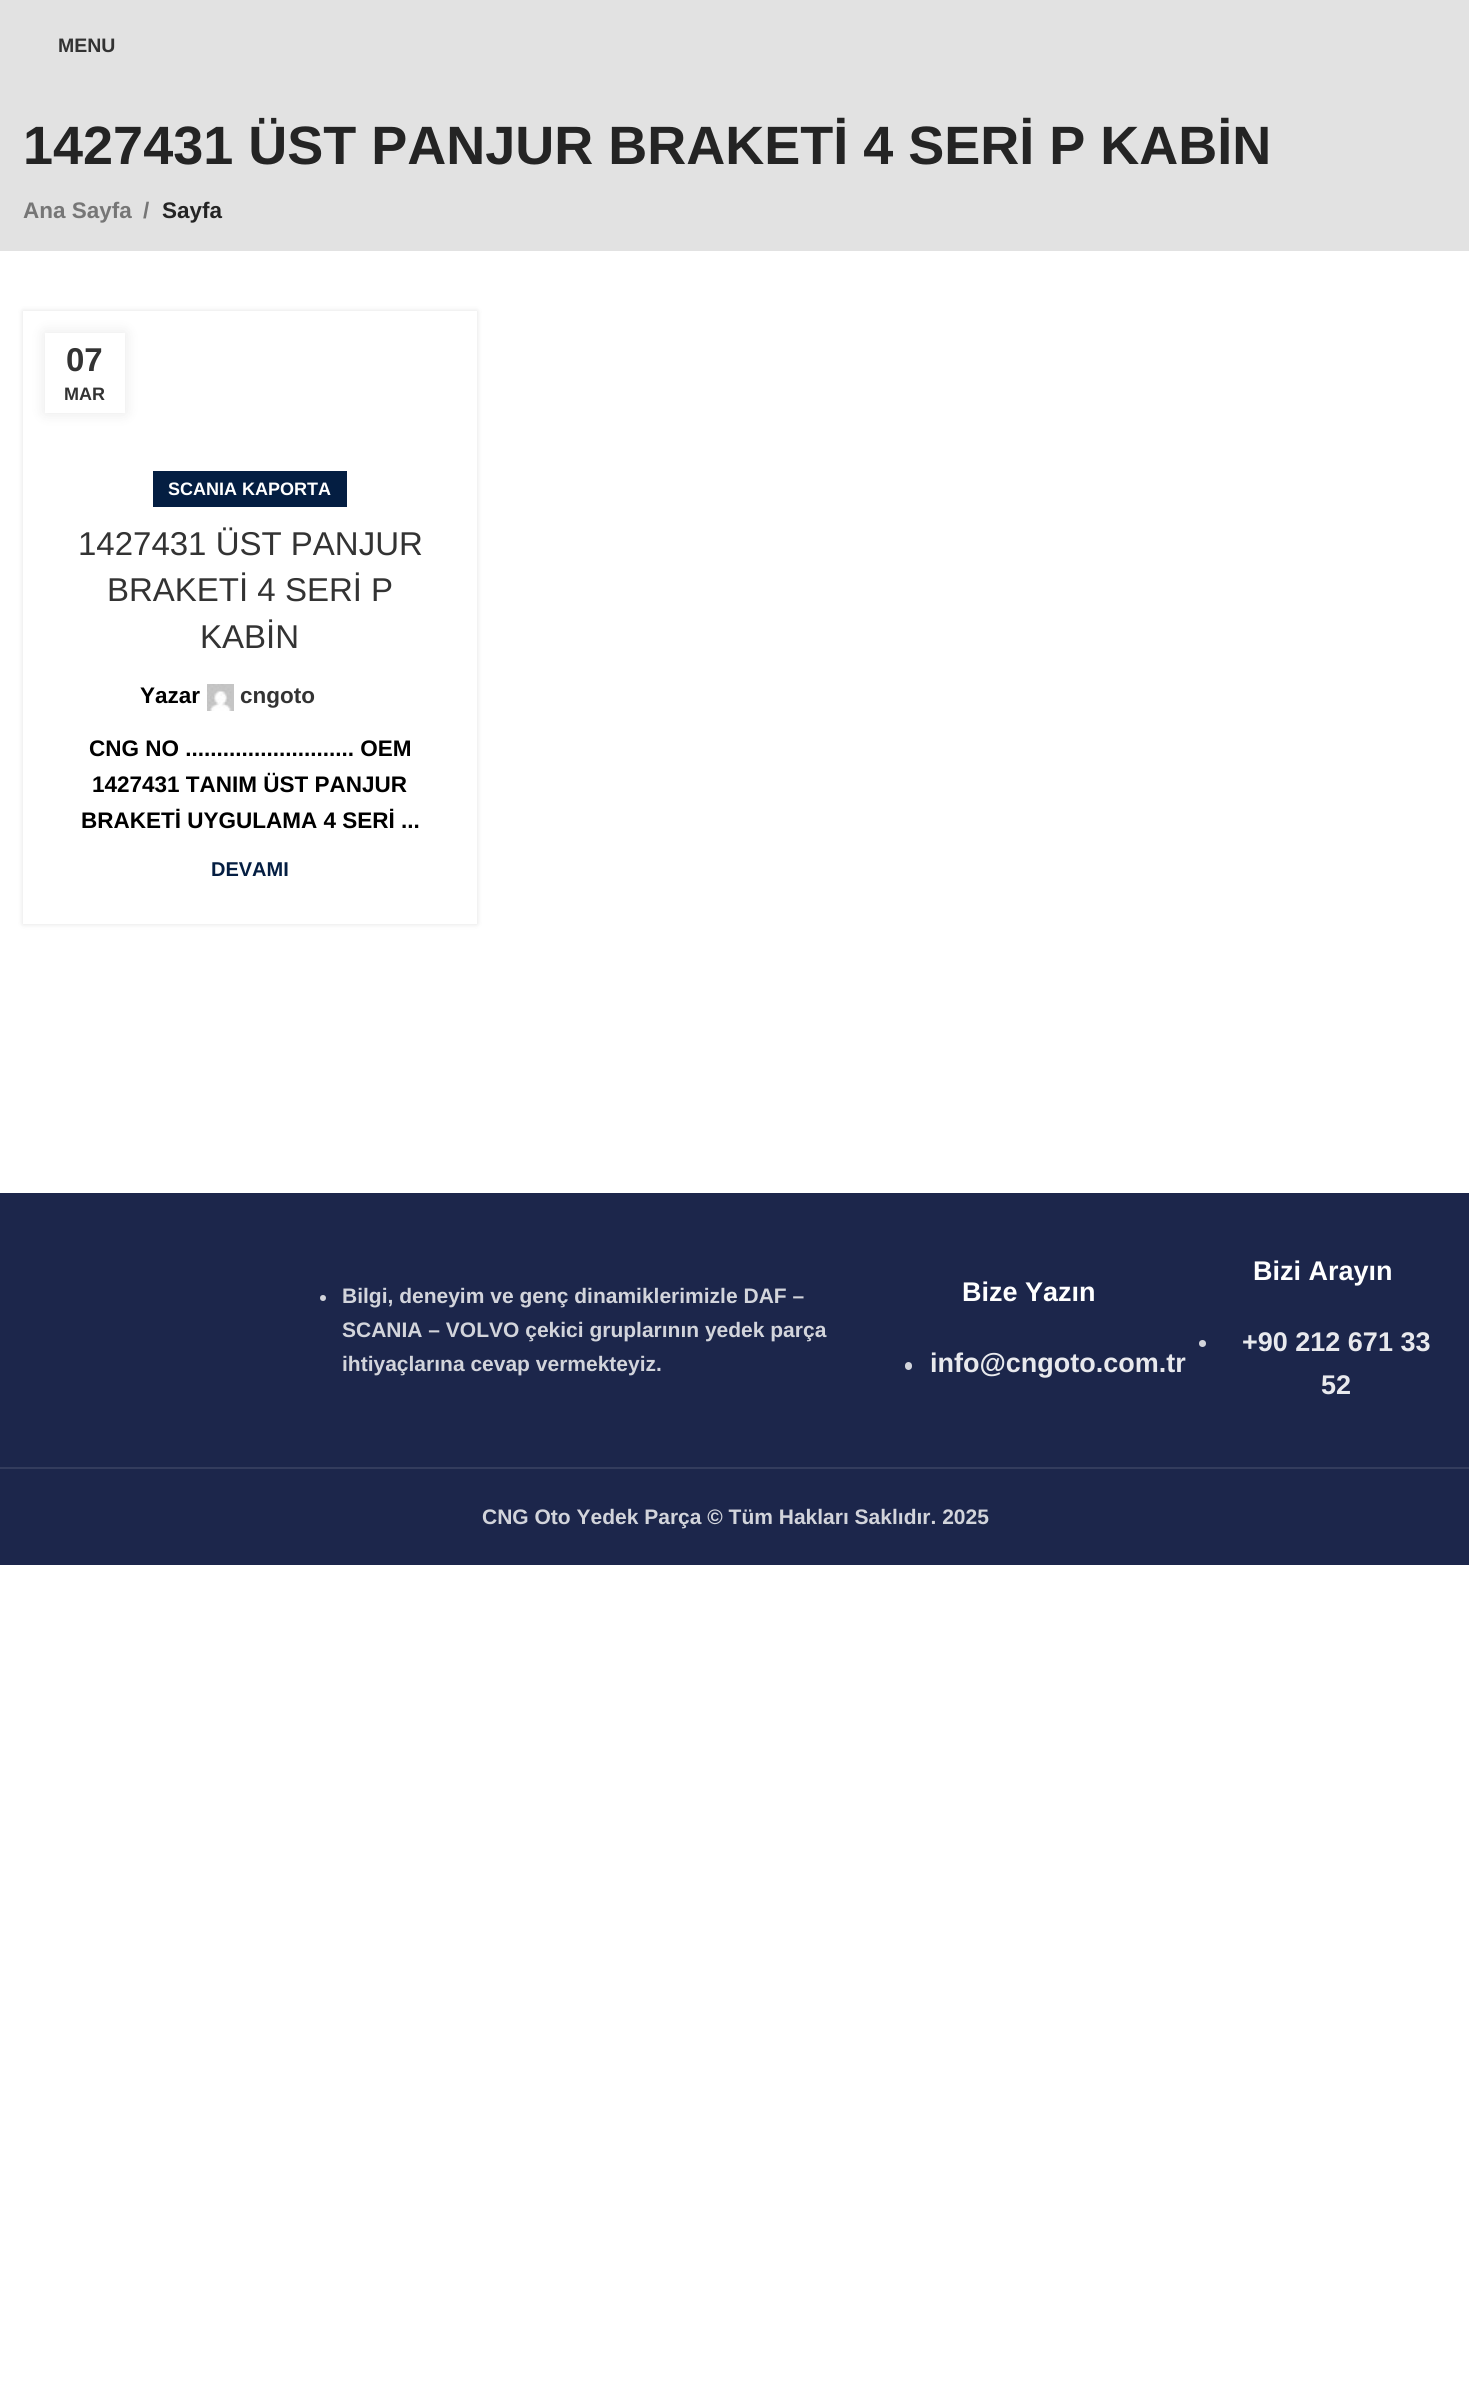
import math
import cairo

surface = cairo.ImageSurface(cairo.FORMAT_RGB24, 1469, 2385)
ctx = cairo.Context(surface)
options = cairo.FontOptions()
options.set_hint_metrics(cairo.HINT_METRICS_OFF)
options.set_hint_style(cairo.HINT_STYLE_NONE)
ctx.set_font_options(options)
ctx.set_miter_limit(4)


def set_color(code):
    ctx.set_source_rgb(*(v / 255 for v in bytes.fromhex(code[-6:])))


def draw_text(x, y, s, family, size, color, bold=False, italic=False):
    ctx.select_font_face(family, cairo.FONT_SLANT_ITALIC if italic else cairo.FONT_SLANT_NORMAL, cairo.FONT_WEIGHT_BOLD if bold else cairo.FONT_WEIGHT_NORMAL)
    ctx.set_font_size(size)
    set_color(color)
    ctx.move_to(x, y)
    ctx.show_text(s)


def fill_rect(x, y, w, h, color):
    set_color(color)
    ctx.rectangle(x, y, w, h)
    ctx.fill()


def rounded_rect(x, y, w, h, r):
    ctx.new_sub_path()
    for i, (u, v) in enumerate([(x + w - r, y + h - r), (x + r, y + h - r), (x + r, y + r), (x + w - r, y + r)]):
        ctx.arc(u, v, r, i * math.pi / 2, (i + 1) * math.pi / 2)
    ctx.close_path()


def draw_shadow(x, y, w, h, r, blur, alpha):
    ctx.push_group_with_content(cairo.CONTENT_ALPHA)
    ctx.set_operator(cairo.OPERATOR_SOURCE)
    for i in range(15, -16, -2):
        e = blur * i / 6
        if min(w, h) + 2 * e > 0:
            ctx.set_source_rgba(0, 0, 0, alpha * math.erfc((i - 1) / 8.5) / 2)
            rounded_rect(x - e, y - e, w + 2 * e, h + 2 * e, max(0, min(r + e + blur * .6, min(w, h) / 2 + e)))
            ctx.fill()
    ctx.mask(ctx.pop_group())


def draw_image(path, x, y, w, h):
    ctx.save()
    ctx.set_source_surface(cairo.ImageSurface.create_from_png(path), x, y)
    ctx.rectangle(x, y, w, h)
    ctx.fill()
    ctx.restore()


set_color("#ffffff")
ctx.paint()
fill_rect(0, 0, 1469, 251, "#e2e2e2")
draw_text(58, 52, "MENU", "Liberation Sans", 19.5, "#333333", bold=True)
draw_text(23, 164, "1427431 ÜST PANJUR BRAKETİ 4 SERİ P KABİN", "Liberation Sans", 54, "#242424", bold=True)
draw_text(23, 218, "Ana Sayfa", "Liberation Sans", 22.5, "#767676", bold=True)
draw_text(143, 218, "/", "Liberation Sans", 22.5, "#767676", bold=True)
draw_text(162, 218, "Sayfa", "Liberation Sans", 22.5, "#242424", bold=True)
ctx.save()
ctx.set_fill_rule(cairo.FILL_RULE_EVEN_ODD)
ctx.new_path()
ctx.move_to(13, 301)
ctx.line_to(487, 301)
ctx.line_to(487, 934)
ctx.line_to(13, 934)
ctx.close_path()
ctx.move_to(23, 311)
ctx.line_to(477, 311)
ctx.line_to(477, 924)
ctx.line_to(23, 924)
ctx.close_path()
ctx.clip()
set_color("#000000")
draw_shadow(23, 311, 454, 613, 0, 3, 0.12)
ctx.restore()
set_color("#000000")
draw_shadow(45, 333, 80, 80, 0, 7, 0.1)
fill_rect(45, 333, 80, 80, "#ffffff")
draw_text(66, 371, "07", "Liberation Sans", 33, "#333333", bold=True)
draw_text(64, 400, "MAR", "Liberation Sans", 18, "#333333", bold=True)
fill_rect(153, 471, 194, 36, "#041e42")
draw_text(168, 495, "SCANIA KAPORTA", "Liberation Sans", 18, "#ffffff", bold=True)
draw_text(78, 555, "1427431 ÜST PANJUR", "Liberation Sans", 33, "#333333")
draw_text(107, 601, "BRAKETİ 4 SERİ P", "Liberation Sans", 33, "#333333")
draw_text(200, 648, "KABİN", "Liberation Sans", 33, "#333333")
draw_text(140, 703, "Yazar", "Liberation Sans", 22.5, "#000000", bold=True)
draw_image("assets/img1.png", 207, 684, 27, 27)
draw_text(240, 703, "cngoto", "Liberation Sans", 22.5, "#333333", bold=True)
draw_text(89, 756, "CNG NO ........................... OEM", "Liberation Sans", 22.5, "#000000", bold=True)
draw_text(92, 792, "1427431 TANIM ÜST PANJUR", "Liberation Sans", 22.5, "#000000", bold=True)
draw_text(81, 828, "BRAKETİ UYGULAMA 4 SERİ ...", "Liberation Sans", 22.5, "#000000", bold=True)
draw_text(211, 876, "DEVAMI", "Liberation Sans", 20, "#041e42", bold=True)
fill_rect(0, 1193, 1469, 274, "#1c264b")
set_color("#d2d4db")
ctx.new_path()
ctx.arc(323, 1298, 3, 0, 2 * math.pi)
ctx.fill()
draw_text(342, 1303, "Bilgi, deneyim ve genç dinamiklerimizle DAF –", "Liberation Sans", 21, "#d2d4db", bold=True)
draw_text(342, 1337, "SCANIA – VOLVO çekici gruplarının yedek parça", "Liberation Sans", 21, "#d2d4db", bold=True)
draw_text(342, 1371, "ihtiyaçlarına cevap vermekteyiz.", "Liberation Sans", 21, "#d2d4db", bold=True)
draw_text(962, 1301, "Bize Yazın", "Liberation Sans", 27, "#ffffff", bold=True)
set_color("#d2d4db")
rounded_rect(905, 1362, 7, 8, 3.5)
ctx.fill()
draw_text(930, 1372, "info@cngoto.com.tr", "Liberation Sans", 27, "#e8e9ed", bold=True)
draw_text(1253, 1280, "Bizi Arayın", "Liberation Sans", 27, "#ffffff", bold=True)
set_color("#d2d4db")
ctx.new_path()
ctx.arc(1202.5, 1343.5, 3.5, 0, 2 * math.pi)
ctx.fill()
draw_text(1242, 1351, "+90 212 671 33", "Liberation Sans", 27, "#e8e9ed", bold=True)
draw_text(1321, 1394, "52", "Liberation Sans", 27, "#e8e9ed", bold=True)
fill_rect(0, 1469, 1469, 96, "#1c264b")
fill_rect(0, 1467, 1469, 2, "#333c5d")
draw_text(482, 1524, "CNG Oto Yedek Parça © Tüm Hakları Saklıdır. 2025", "Liberation Sans", 21, "#d2d4db", bold=True)
surface.write_to_png("output.png")
